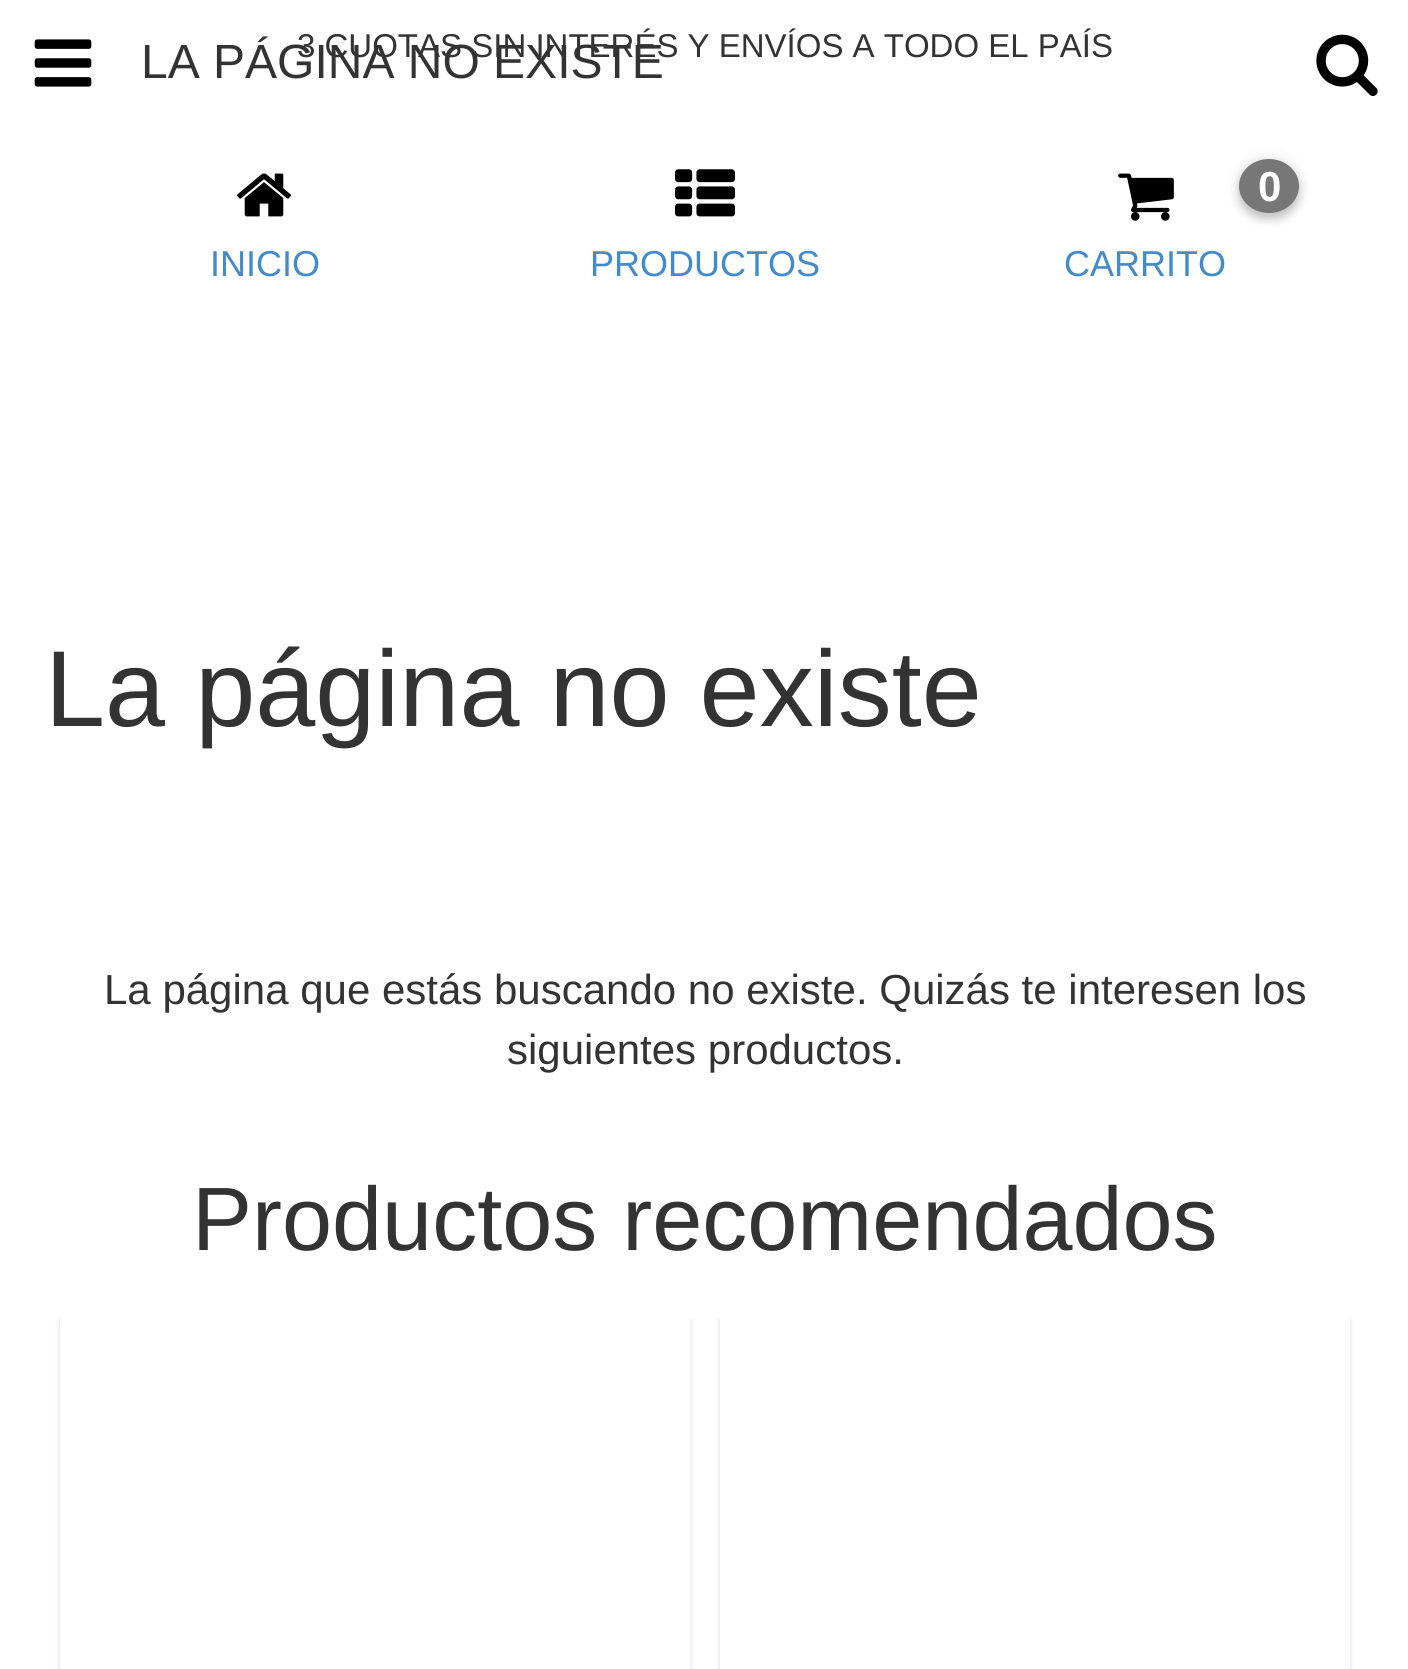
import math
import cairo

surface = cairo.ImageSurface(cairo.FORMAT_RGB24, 1408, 1669)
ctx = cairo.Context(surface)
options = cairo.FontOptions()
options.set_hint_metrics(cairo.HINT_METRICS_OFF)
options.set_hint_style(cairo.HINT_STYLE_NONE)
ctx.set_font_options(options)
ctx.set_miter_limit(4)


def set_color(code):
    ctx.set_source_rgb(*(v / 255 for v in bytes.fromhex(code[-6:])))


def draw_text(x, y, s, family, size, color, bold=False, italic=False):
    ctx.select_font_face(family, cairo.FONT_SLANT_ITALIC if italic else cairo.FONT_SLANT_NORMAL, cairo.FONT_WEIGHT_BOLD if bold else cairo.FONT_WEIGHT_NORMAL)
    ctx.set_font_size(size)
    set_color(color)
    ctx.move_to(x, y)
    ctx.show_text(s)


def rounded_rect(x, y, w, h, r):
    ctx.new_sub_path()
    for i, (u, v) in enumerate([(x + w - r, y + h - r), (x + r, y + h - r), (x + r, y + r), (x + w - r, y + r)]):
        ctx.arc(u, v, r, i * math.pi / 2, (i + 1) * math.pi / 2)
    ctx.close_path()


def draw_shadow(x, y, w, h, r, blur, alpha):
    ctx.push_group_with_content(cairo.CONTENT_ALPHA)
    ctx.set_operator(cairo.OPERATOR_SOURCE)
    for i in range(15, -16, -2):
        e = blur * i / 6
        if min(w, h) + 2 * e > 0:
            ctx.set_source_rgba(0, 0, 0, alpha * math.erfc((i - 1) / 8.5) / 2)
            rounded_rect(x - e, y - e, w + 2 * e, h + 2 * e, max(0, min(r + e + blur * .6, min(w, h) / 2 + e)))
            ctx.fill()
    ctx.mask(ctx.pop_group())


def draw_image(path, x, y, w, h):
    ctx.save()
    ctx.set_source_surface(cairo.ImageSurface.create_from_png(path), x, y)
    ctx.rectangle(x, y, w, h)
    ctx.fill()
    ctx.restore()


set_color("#ffffff")
ctx.paint()
draw_text(141, 78, "LA PÁGINA NO EXISTE", "Liberation Sans", 48, "#333333")
draw_text(297, 57, "3 CUOTAS SIN INTERÉS Y ENVÍOS A TODO EL PAÍS", "Liberation Sans", 33, "#333333")
draw_image("assets/img1.png", 34, 39, 58, 48)
draw_image("assets/img2.png", 1316, 34, 62, 62)
draw_image("assets/img3.png", 237, 173, 54, 44)
draw_text(210, 276, "INICIO", "Liberation Sans", 36, "#428bca")
draw_image("assets/img4.png", 675, 169, 60, 48)
draw_text(590, 276, "PRODUCTOS", "Liberation Sans", 36, "#428bca")
draw_image("assets/img5.png", 1118, 173, 56, 48)
set_color("#000000")
draw_shadow(1239, 165, 60, 54, 27, 4.5, 0.2)
draw_shadow(1239, 159, 60, 54, 27, 7.5, 0.1)
set_color("#777777")
ctx.new_path()
ctx.move_to(1269, 159)
ctx.curve_to(1285.5, 159, 1299, 171, 1299, 186)
ctx.curve_to(1299, 201, 1285.5, 213, 1269, 213)
ctx.curve_to(1252.5, 213, 1239, 201, 1239, 186)
ctx.curve_to(1239, 171, 1252.5, 159, 1269, 159)
ctx.close_path()
ctx.fill()
draw_text(1258, 201, "0", "Liberation Sans", 42, "#ffffff", bold=True)
draw_text(1064, 276, "CARRITO", "Liberation Sans", 36, "#428bca")
draw_text(45, 726, "La página no existe", "Liberation Sans", 108, "#333333")
draw_text(104, 1004, "La página que estás buscando no existe. Quizás te interesen los", "Liberation Sans", 42, "#333333")
draw_text(507, 1064, "siguientes productos.", "Liberation Sans", 42, "#333333")
draw_text(192, 1250, "Productos recomendados", "Liberation Sans", 90, "#333333")
ctx.save()
ctx.set_fill_rule(cairo.FILL_RULE_EVEN_ODD)
ctx.new_path()
ctx.move_to(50, 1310)
ctx.line_to(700, 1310)
ctx.line_to(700, 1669)
ctx.line_to(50, 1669)
ctx.close_path()
ctx.move_to(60, 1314)
ctx.line_to(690, 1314)
ctx.line_to(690, 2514)
ctx.line_to(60, 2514)
ctx.close_path()
ctx.clip()
set_color("#323232")
draw_shadow(60, 1320, 630, 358, 0, 3, 0.15)
ctx.restore()
ctx.save()
ctx.set_fill_rule(cairo.FILL_RULE_EVEN_ODD)
ctx.new_path()
ctx.move_to(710, 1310)
ctx.line_to(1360, 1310)
ctx.line_to(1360, 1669)
ctx.line_to(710, 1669)
ctx.close_path()
ctx.move_to(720, 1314)
ctx.line_to(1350, 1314)
ctx.line_to(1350, 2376)
ctx.line_to(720, 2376)
ctx.close_path()
ctx.clip()
set_color("#323232")
draw_shadow(720, 1320, 630, 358, 0, 3, 0.15)
ctx.restore()
surface.write_to_png("output.png")
